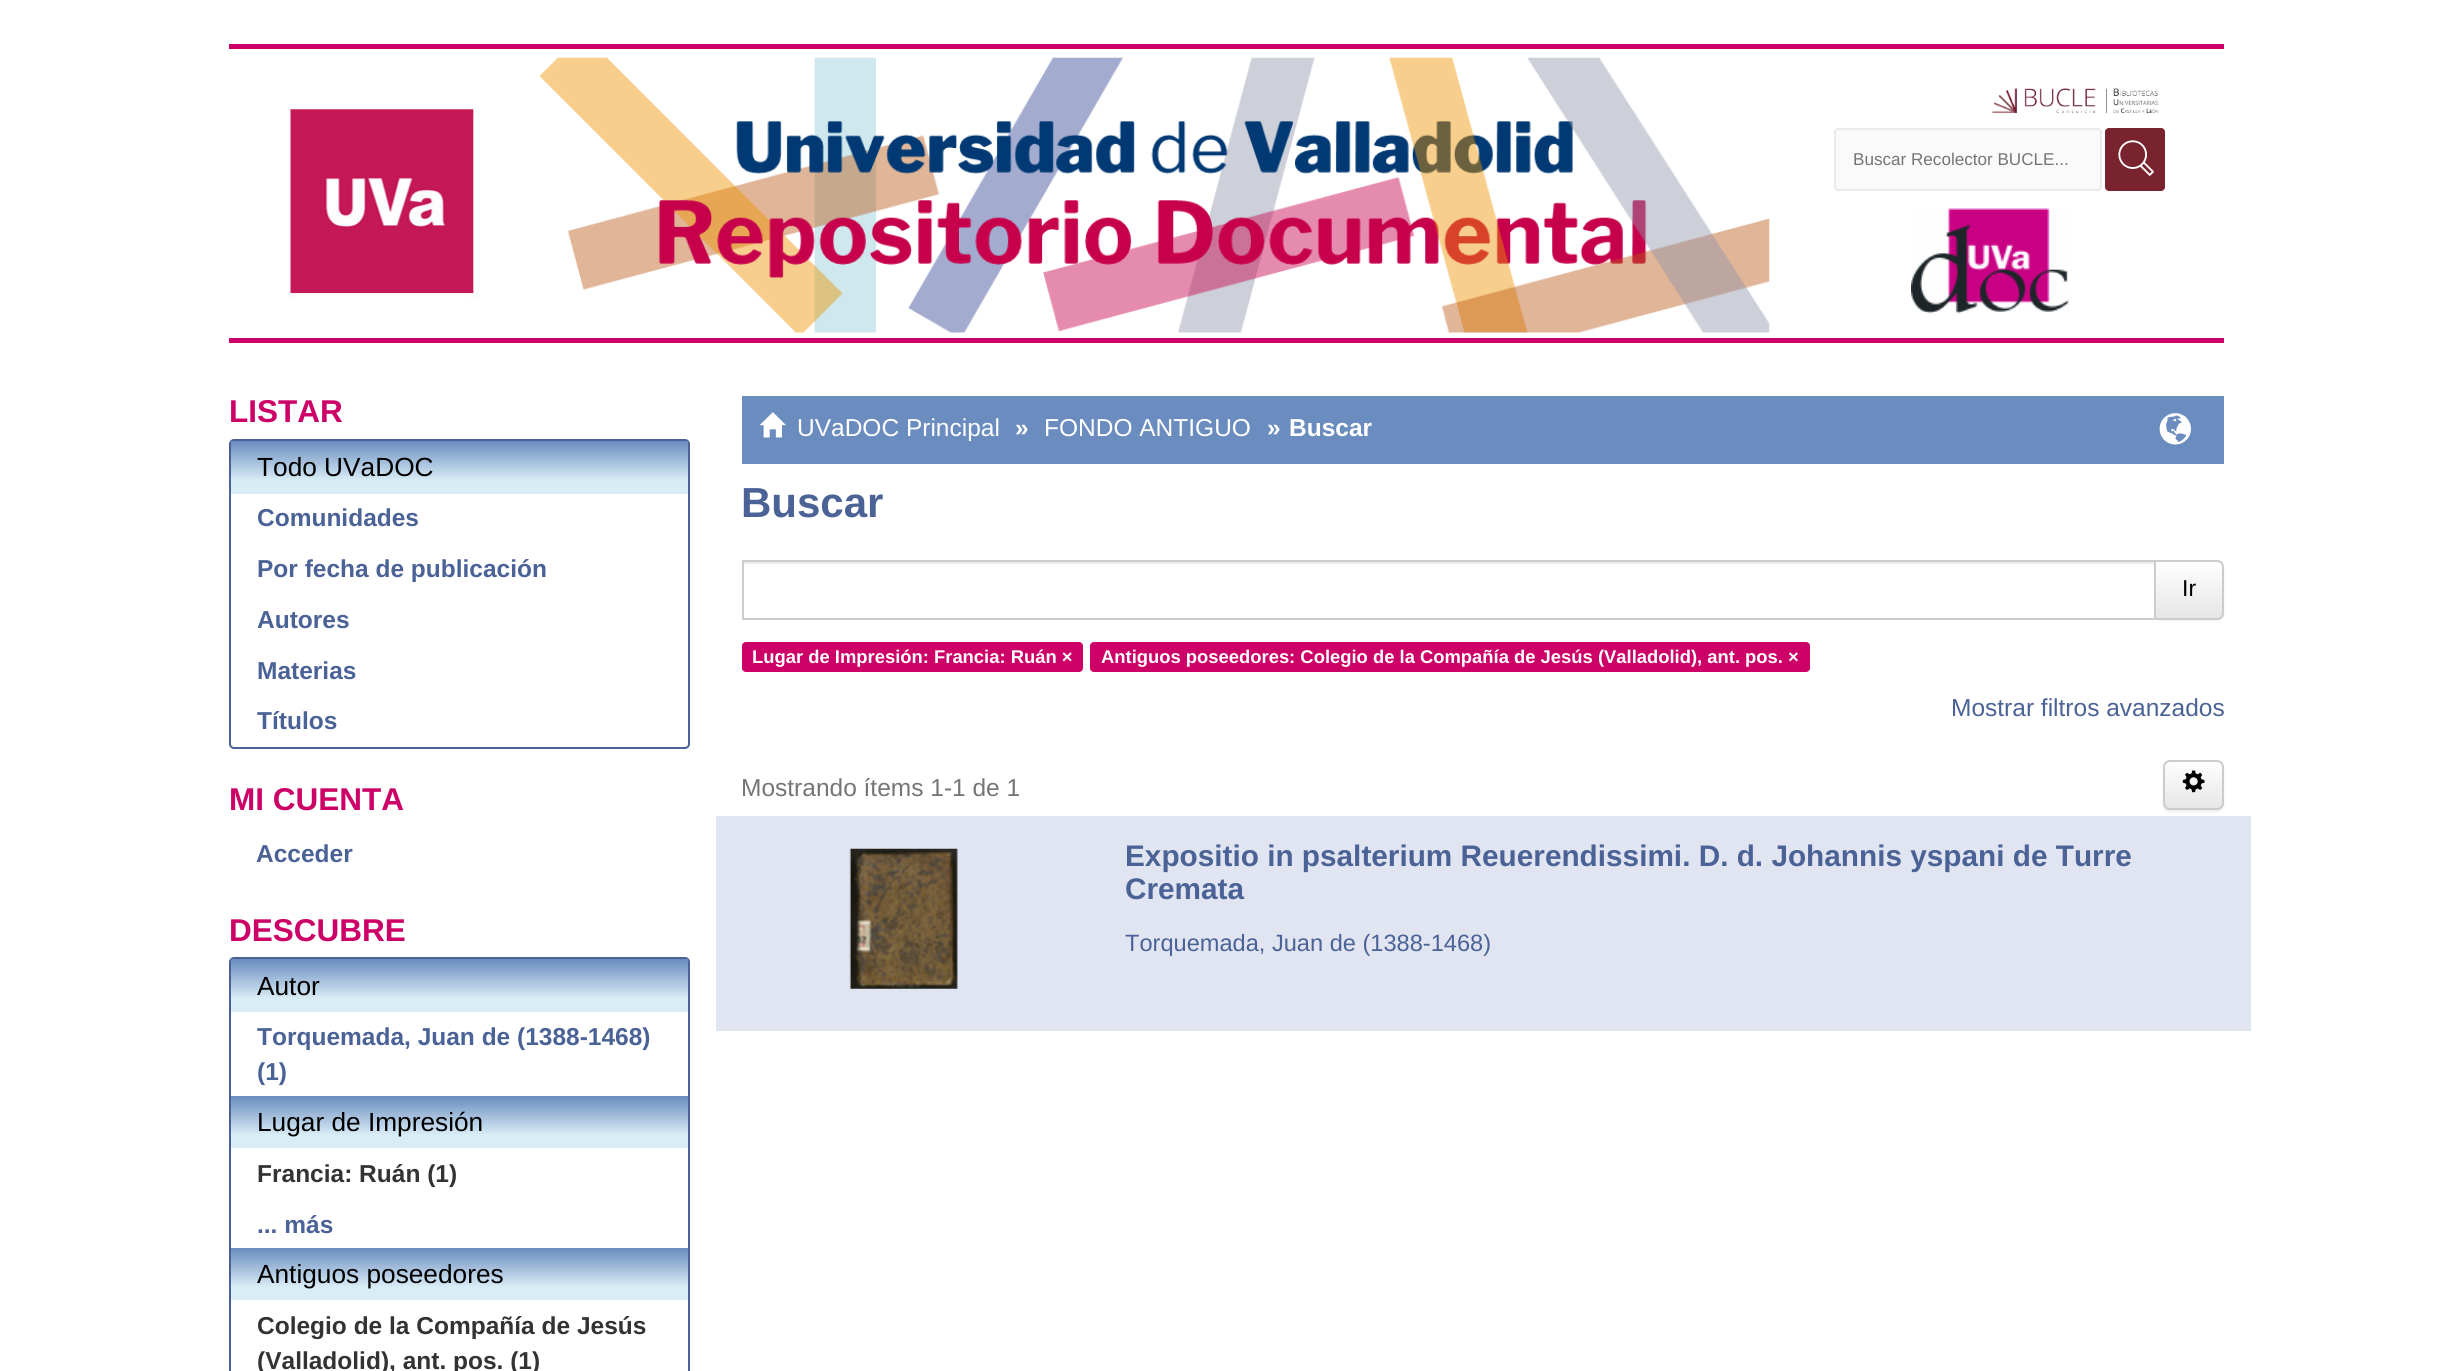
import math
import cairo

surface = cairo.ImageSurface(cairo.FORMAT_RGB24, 2453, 1371)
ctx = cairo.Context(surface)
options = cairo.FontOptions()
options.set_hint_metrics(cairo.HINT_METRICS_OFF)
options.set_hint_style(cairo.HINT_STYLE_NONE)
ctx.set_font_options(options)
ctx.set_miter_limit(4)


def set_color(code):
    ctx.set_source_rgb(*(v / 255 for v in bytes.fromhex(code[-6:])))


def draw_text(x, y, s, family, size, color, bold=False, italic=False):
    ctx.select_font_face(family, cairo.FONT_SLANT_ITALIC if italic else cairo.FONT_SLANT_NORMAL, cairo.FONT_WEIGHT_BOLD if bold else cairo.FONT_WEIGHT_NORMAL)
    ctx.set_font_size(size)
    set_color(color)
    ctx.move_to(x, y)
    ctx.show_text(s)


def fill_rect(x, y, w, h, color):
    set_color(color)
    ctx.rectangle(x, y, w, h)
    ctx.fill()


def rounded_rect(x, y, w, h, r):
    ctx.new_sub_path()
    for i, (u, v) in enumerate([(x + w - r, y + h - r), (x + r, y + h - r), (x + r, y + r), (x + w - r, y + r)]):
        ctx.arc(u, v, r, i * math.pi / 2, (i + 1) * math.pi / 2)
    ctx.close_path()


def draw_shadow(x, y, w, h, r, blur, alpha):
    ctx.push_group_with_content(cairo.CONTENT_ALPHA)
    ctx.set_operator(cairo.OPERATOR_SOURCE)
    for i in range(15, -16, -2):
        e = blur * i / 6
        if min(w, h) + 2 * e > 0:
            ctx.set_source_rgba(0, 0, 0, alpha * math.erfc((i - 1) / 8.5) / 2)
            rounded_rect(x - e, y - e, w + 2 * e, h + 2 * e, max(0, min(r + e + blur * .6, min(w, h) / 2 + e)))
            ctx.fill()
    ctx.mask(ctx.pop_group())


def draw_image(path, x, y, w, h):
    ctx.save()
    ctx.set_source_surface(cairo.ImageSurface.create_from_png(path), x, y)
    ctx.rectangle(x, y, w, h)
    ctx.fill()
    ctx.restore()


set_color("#ffffff")
ctx.paint()
fill_rect(229, 44, 1995, 5, "#cc0066")
fill_rect(229, 338, 1995, 5, "#cc0066")
draw_image("assets/img1.png", 287, 107, 192, 192)
draw_image("assets/img2.png", 539, 57, 1231, 276)
draw_image("assets/img3.png", 1992, 88, 167, 26)
set_color("#fafafa")
rounded_rect(1835, 129, 266, 61, 3)
ctx.fill_preserve()
set_color("#eaeaea")
ctx.stroke()
draw_text(1853, 165, "Buscar Recolector BUCLE...", "Liberation Sans", 17.1, "#757575")
set_color("#79232e")
rounded_rect(2105, 128, 60, 63, 4)
ctx.fill()
draw_image("assets/img4.png", 2118, 140, 36, 36)
draw_image("assets/img5.png", 1911, 208, 158, 106)
draw_text(229, 422, "LISTAR", "Liberation Sans", 31.5, "#cc0066", bold=True)
rounded_rect(230, 440, 459, 308, 4)
set_color("#4b6296")
ctx.stroke()
gradient = cairo.LinearGradient(459, 441, 459, 494)
gradient.add_color_stop_rgba(0, 0.416, 0.549, 0.745, 1)
gradient.add_color_stop_rgba(0.75, 0.851, 0.929, 0.969, 1)
ctx.set_source(gradient)
ctx.rectangle(231, 441, 457, 53)
ctx.fill()
draw_text(257, 476, "Todo UVaDOC", "Liberation Sans", 26.25, "#000000")
draw_text(257, 526, "Comunidades", "Liberation Sans", 24.5, "#4b6296", bold=True)
draw_text(257, 577, "Por fecha de publicación", "Liberation Sans", 24.5, "#4b6296", bold=True)
draw_text(257, 628, "Autores", "Liberation Sans", 24.5, "#4b6296", bold=True)
draw_text(257, 679, "Materias", "Liberation Sans", 24.5, "#4b6296", bold=True)
draw_text(257, 729, "Títulos", "Liberation Sans", 24.5, "#4b6296", bold=True)
draw_text(229, 810, "MI CUENTA", "Liberation Sans", 31.5, "#cc0066", bold=True)
draw_text(256, 862, "Acceder", "Liberation Sans", 24.5, "#4b6296", bold=True)
draw_text(229, 941, "DESCUBRE", "Liberation Sans", 31.5, "#cc0066", bold=True)
rounded_rect(230, 958, 459, 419, 4)
set_color("#4b6296")
ctx.stroke()
gradient = cairo.LinearGradient(459, 959, 459, 1012)
gradient.add_color_stop_rgba(0, 0.416, 0.549, 0.745, 1)
gradient.add_color_stop_rgba(0.75, 0.851, 0.929, 0.969, 1)
ctx.set_source(gradient)
ctx.rectangle(231, 959, 457, 53)
ctx.fill()
draw_text(257, 995, "Autor", "Liberation Sans", 26.25, "#000000")
draw_text(257, 1045, "Torquemada, Juan de (1388-1468)", "Liberation Sans", 24.5, "#4b6296", bold=True)
draw_text(257, 1080, "(1)", "Liberation Sans", 24.5, "#4b6296", bold=True)
gradient = cairo.LinearGradient(459, 1096, 459, 1148)
gradient.add_color_stop_rgba(0, 0.416, 0.549, 0.745, 1)
gradient.add_color_stop_rgba(0.75, 0.851, 0.929, 0.969, 1)
ctx.set_source(gradient)
ctx.rectangle(231, 1096, 457, 52)
ctx.fill()
draw_text(257, 1131, "Lugar de Impresión", "Liberation Sans", 26.25, "#000000")
draw_text(257, 1182, "Francia: Ruán (1)", "Liberation Sans", 24.5, "#333333", bold=True)
draw_text(257, 1233, "... más", "Liberation Sans", 24.5, "#4b6296", bold=True)
gradient = cairo.LinearGradient(459, 1248, 459, 1300)
gradient.add_color_stop_rgba(0, 0.416, 0.549, 0.745, 1)
gradient.add_color_stop_rgba(0.75, 0.851, 0.929, 0.969, 1)
ctx.set_source(gradient)
ctx.rectangle(231, 1248, 457, 52)
ctx.fill()
draw_text(257, 1283, "Antiguos poseedores", "Liberation Sans", 26.25, "#000000")
draw_text(257, 1334, "Colegio de la Compañía de Jesús", "Liberation Sans", 24.5, "#333333", bold=True)
draw_text(257, 1369, "(Valladolid), ant. pos. (1)", "Liberation Sans", 24.5, "#333333", bold=True)
fill_rect(742, 396, 1482, 68, "#6a8cbe")
draw_image("assets/img6.png", 759, 412, 27, 26)
draw_text(797, 436, "UVaDOC Principal", "Liberation Sans", 24.5, "#ffffff")
draw_text(1015, 436, "»", "Liberation Sans", 24.5, "#ffffff", bold=True)
draw_text(1044, 436, "FONDO ANTIGUO", "Liberation Sans", 24.5, "#ffffff")
draw_text(1267, 436, "»", "Liberation Sans", 24.5, "#ffffff", bold=True)
draw_text(1289, 436, "Buscar", "Liberation Sans", 24.5, "#ffffff", bold=True)
draw_image("assets/img7.png", 2159, 413, 32, 32)
draw_text(741, 517, "Buscar", "Liberation Sans", 42, "#4b6296", bold=True)
set_color("#000000")
draw_shadow(2154, 562, 70, 59, 7, 1, 0.07)
fill_rect(2153, 566, 1, 51, "#ffffff")
fill_rect(744, 562, 1410, 2, "#ececec")
ctx.save()
ctx.new_path()
ctx.move_to(2154, 560)
ctx.line_to(2217, 560)
ctx.curve_to(2221, 560, 2224, 563, 2224, 567)
ctx.line_to(2224, 613)
ctx.curve_to(2224, 617, 2221, 620, 2217, 620)
ctx.line_to(2154, 620)
ctx.close_path()
ctx.clip()
gradient = cairo.LinearGradient(2189, 562, 2189, 618)
gradient.add_color_stop_rgba(0, 1, 1, 1, 1)
gradient.add_color_stop_rgba(1, 0.902, 0.902, 0.902, 1)
ctx.set_source(gradient)
ctx.rectangle(2156, 562, 68, 56)
ctx.fill()
ctx.restore()
ctx.set_source_rgba(1, 1, 1, 0.15)
ctx.new_path()
ctx.move_to(2156, 564)
ctx.line_to(2217, 564)
ctx.curve_to(2220, 564, 2222, 566, 2222, 569)
ctx.line_to(2222, 614)
ctx.line_to(2222, 617)
ctx.curve_to(2222, 616, 2223, 614, 2223, 613)
ctx.line_to(2223, 567)
ctx.curve_to(2223, 564, 2221, 562, 2218, 562)
ctx.line_to(2156, 562)
ctx.close_path()
ctx.fill()
ctx.new_path()
ctx.move_to(2155, 561)
ctx.line_to(2217, 561)
ctx.curve_to(2220.5, 561, 2223, 563.5, 2223, 567)
ctx.line_to(2223, 613)
ctx.curve_to(2223, 616.5, 2220.5, 619, 2217, 619)
ctx.line_to(2155, 619)
ctx.close_path()
set_color("#cccccc")
ctx.stroke()
ctx.rectangle(743, 561, 1412, 58)
ctx.stroke()
draw_text(2182, 596, "Ir", "Liberation Sans", 23, "#000000")
set_color("#cc0066")
rounded_rect(742, 642, 341, 30, 4)
ctx.fill()
draw_text(752, 663, "Lugar de Impresión: Francia: Ruán ×", "Liberation Sans", 18.4, "#ffffff", bold=True)
set_color("#cc0066")
rounded_rect(1090, 642, 720, 30, 4)
ctx.fill()
draw_text(1101, 663, "Antiguos poseedores: Colegio de la Compañía de Jesús (Valladolid), ant. pos. ×", "Liberation Sans", 18.4, "#ffffff", bold=True)
draw_text(1951, 716, "Mostrar filtros avanzados", "Liberation Sans", 24.5, "#4b6296")
draw_text(741, 796, "Mostrando ítems 1-1 de 1", "Liberation Sans", 24.5, "#757575")
set_color("#000000")
draw_shadow(2163, 761, 61, 51, 7, 1, 0.07)
ctx.save()
rounded_rect(2163, 760, 61, 50, 7)
ctx.clip()
gradient = cairo.LinearGradient(2194, 761, 2194, 809)
gradient.add_color_stop_rgba(0, 1, 1, 1, 1)
gradient.add_color_stop_rgba(1, 0.902, 0.902, 0.902, 1)
ctx.set_source(gradient)
ctx.rectangle(2163, 761, 61, 48)
ctx.fill()
ctx.restore()
ctx.set_source_rgba(1, 1, 1, 0.15)
ctx.new_path()
ctx.move_to(2170, 763)
ctx.line_to(2217, 763)
ctx.curve_to(2220, 763, 2222, 765, 2222, 768)
ctx.line_to(2222, 805)
ctx.line_to(2221, 808)
ctx.curve_to(2222, 807, 2223, 805, 2223, 804)
ctx.line_to(2223, 766)
ctx.curve_to(2223, 763, 2221, 761, 2218, 761)
ctx.line_to(2170, 761)
ctx.curve_to(2167, 761, 2165, 763, 2165, 766)
ctx.line_to(2165, 768)
ctx.curve_to(2165, 765, 2167, 763, 2170, 763)
ctx.close_path()
ctx.fill()
rounded_rect(2164, 761, 59, 48, 6)
set_color("#cccccc")
ctx.stroke()
draw_image("assets/img8.png", 2182, 770, 23, 23)
fill_rect(716, 816, 1535, 215, "#e0e5f1")
draw_image("assets/img9.png", 849, 848, 109, 141)
draw_text(1125, 866, "Expositio in psalterium Reuerendissimi. D. d. Johannis yspani de Turre", "Liberation Sans", 29.75, "#4b6296", bold=True)
draw_text(1125, 899, "Cremata", "Liberation Sans", 29.75, "#4b6296", bold=True)
draw_text(1125, 951, "Torquemada, Juan de (1388-1468)", "Liberation Sans", 23.6, "#4b6296")
surface.write_to_png("output.png")
